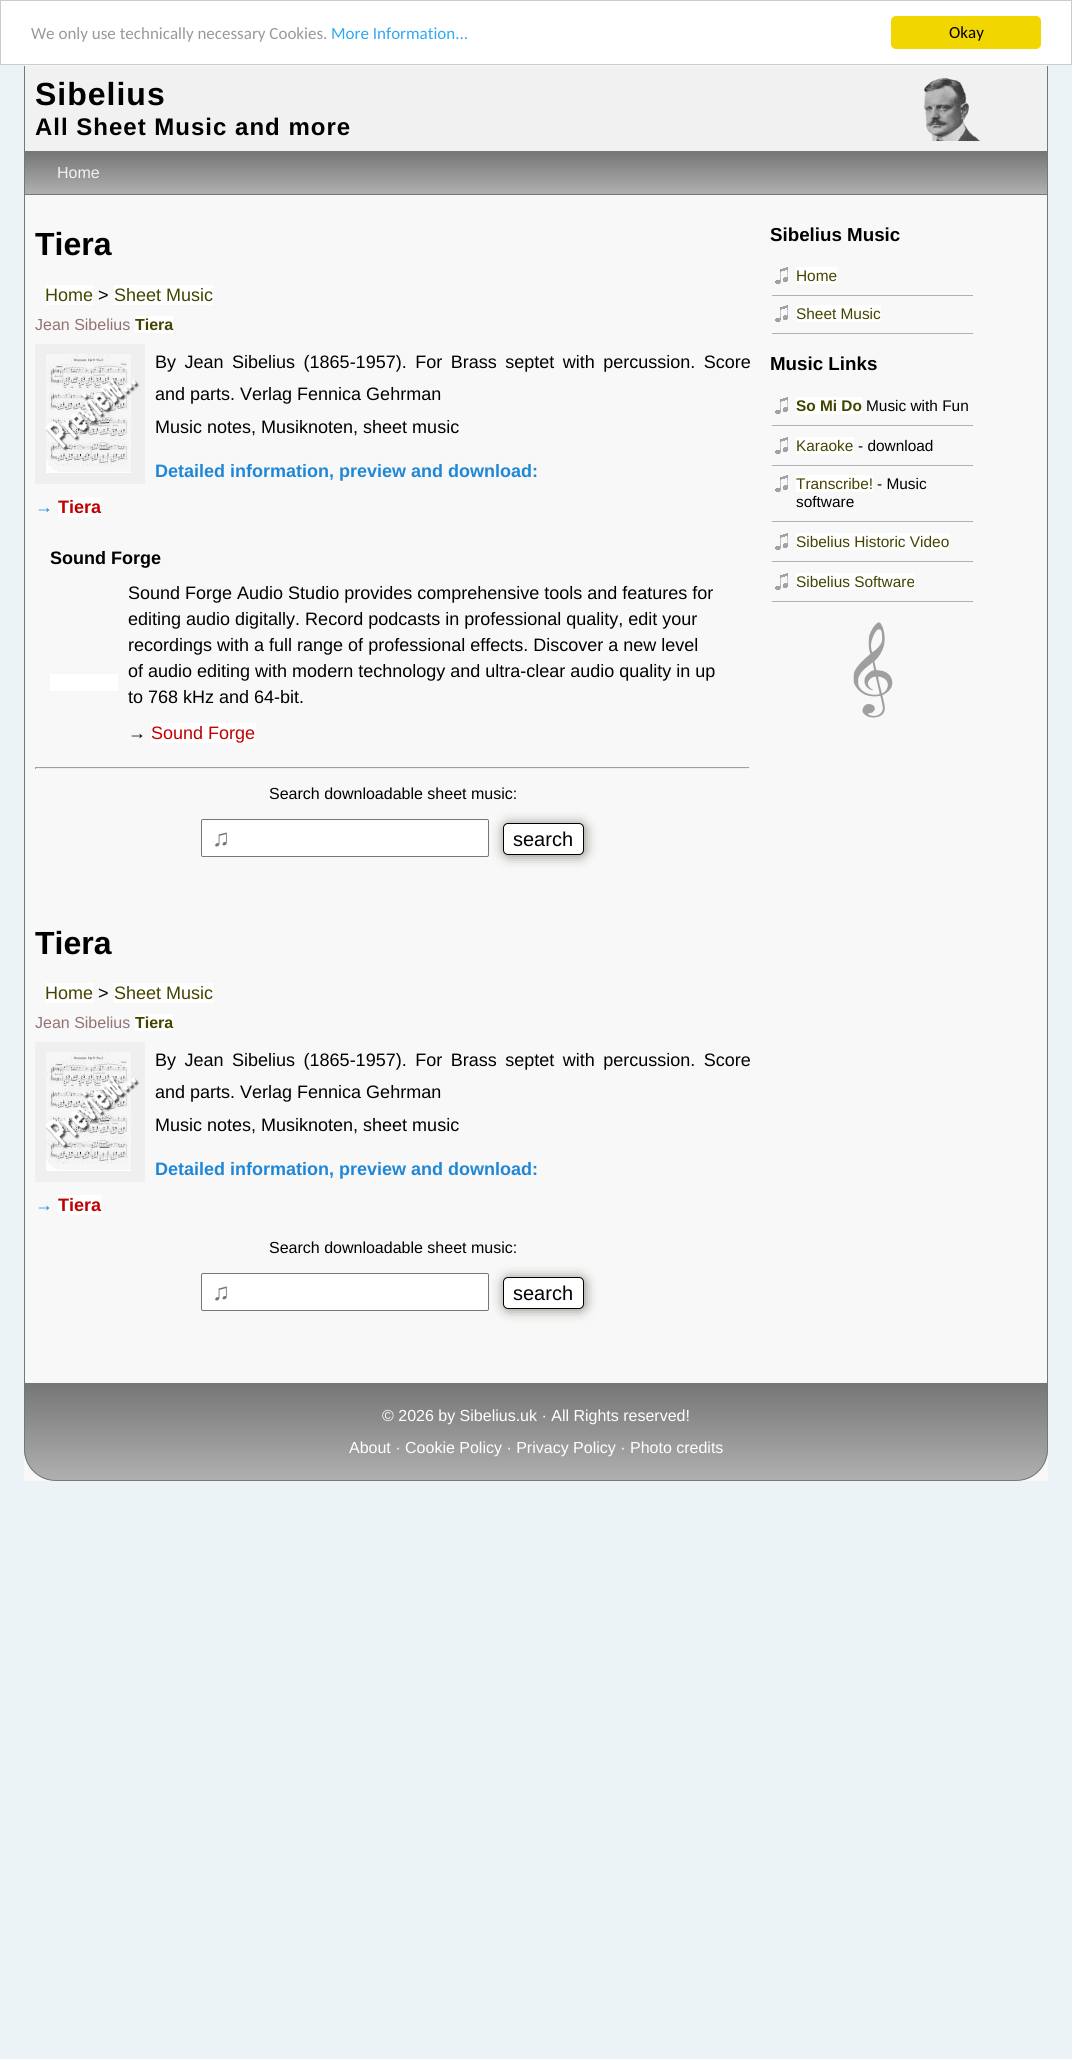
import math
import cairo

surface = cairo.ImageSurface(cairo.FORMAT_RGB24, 1072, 2059)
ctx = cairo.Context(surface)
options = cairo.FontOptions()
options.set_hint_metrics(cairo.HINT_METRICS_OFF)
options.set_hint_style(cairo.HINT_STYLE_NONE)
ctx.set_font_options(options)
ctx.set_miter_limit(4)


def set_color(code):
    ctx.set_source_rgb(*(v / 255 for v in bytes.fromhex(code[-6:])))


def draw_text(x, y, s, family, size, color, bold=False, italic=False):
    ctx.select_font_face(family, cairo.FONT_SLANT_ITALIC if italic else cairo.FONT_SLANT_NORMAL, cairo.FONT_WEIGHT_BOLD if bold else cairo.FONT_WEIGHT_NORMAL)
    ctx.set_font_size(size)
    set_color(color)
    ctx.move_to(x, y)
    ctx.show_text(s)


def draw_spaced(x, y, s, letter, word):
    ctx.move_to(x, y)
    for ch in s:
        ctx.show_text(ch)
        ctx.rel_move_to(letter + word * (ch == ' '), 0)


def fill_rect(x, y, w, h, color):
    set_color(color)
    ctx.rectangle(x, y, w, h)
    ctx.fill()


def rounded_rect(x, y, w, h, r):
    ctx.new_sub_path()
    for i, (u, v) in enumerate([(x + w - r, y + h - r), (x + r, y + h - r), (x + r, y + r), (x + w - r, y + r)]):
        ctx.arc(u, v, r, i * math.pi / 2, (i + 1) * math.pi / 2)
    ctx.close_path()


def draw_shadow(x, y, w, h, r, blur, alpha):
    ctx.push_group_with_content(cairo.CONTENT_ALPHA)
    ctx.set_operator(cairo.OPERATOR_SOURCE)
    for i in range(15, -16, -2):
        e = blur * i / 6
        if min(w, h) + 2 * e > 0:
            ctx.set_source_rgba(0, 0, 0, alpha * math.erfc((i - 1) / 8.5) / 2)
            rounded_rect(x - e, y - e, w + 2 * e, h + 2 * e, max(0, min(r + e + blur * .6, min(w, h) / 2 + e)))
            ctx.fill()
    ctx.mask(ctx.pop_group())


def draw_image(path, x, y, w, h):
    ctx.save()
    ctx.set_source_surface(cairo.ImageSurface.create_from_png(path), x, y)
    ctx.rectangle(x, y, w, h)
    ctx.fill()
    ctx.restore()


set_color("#ecf3f6")
ctx.paint()
fill_rect(24, 65, 1024, 1416, "#f8f8f8")
set_color("#ffffff")
ctx.rectangle(0.5, 0.5, 1071, 64)
ctx.fill_preserve()
set_color("#cccccc")
ctx.set_line_width(1)
ctx.stroke()
draw_text(31, 39, "We only use technically necessary Cookies.", "Carlito", 17, "#999999")
draw_text(331, 39, "More Information...", "Carlito", 17, "#31a8f0")
set_color("#f1d600")
rounded_rect(891, 16, 150, 33, 5)
ctx.fill()
draw_text(949, 38, "Okay", "Carlito", 17, "#000000")
fill_rect(25, 66, 1022, 85, "#f1f1f1")
fill_rect(1047, 66, 1, 85, "#767676")
fill_rect(24, 66, 1, 85, "#767676")
ctx.select_font_face("Liberation Sans", cairo.FONT_SLANT_NORMAL, cairo.FONT_WEIGHT_BOLD)
ctx.set_font_size(32)
set_color("#000000")
draw_spaced(35, 105, "Sibelius", 1, 0)
ctx.set_font_size(24)
draw_spaced(35, 135, "All Sheet Music and more", 1, 0)
draw_image("assets/img1.png", 924, 77, 57, 64)
gradient = cairo.LinearGradient(536, 152, 536, 194)
gradient.add_color_stop_rgba(0, 0.463, 0.463, 0.463, 1)
gradient.add_color_stop_rgba(1, 0.69, 0.69, 0.69, 1)
ctx.set_source(gradient)
ctx.rectangle(25, 152, 1022, 42)
ctx.fill()
ctx.rectangle(24.5, 151.5, 1023, 43)
set_color("#767676")
ctx.stroke()
draw_text(57, 178, "Home", "Liberation Sans", 16, "#f2f2f2")
fill_rect(1047, 195, 1, 1188, "#767676")
fill_rect(24, 195, 1, 1188, "#767676")
draw_text(35, 255, "Tiera", "Liberation Sans", 32, "#000000", bold=True)
fill_rect(45, 285, 48, 20, "#ffffff")
draw_text(45, 301, "Home", "Liberation Sans", 18, "#434400")
draw_text(98, 301, ">", "Liberation Sans", 18, "#000000")
fill_rect(114, 285, 99, 20, "#ffffff")
draw_text(114, 301, "Sheet Music", "Liberation Sans", 18, "#434400")
draw_text(35, 330, "Jean Sibelius", "Liberation Sans", 16, "#927272")
fill_rect(135, 316, 38, 17, "#ffffff")
draw_text(135, 330, "Tiera", "Liberation Sans", 16, "#434400", bold=True)
draw_image("assets/img2.png", 35, 344, 110, 140)
ctx.select_font_face("Liberation Sans")
ctx.set_font_size(18)
set_color("#000000")
draw_spaced(155, 368, "By Jean Sibelius (1865-1957). For Brass septet with percussion. Score", 0, 3.5)
draw_text(155, 400, "and parts. Verlag Fennica Gehrman", "Liberation Sans", 18, "#000000")
draw_text(155, 433, "Music notes, Musiknoten, sheet music", "Liberation Sans", 18, "#000000")
draw_text(155, 477, "Detailed information, preview and download:", "Liberation Sans", 18, "#2087d6", bold=True)
draw_text(35, 513, "→", "Liberation Sans", 18, "#2087d6", bold=True)
fill_rect(58, 497, 43, 20, "#ffffff")
draw_text(58, 513, "Tiera", "Liberation Sans", 18, "#c00000", bold=True)
draw_text(50, 564, "Sound Forge", "Liberation Sans", 18, "#000000", bold=True)
fill_rect(50, 674, 68, 17, "#ffffff")
draw_text(128, 599, "Sound Forge Audio Studio provides comprehensive tools and features for", "Liberation Sans", 18, "#000000")
draw_text(128, 625, "editing audio digitally. Record podcasts in professional quality, edit your", "Liberation Sans", 18, "#000000")
draw_text(128, 651, "recordings with a full range of professional effects. Discover a new level", "Liberation Sans", 18, "#000000")
draw_text(128, 677, "of audio editing with modern technology and ultra-clear audio quality in up", "Liberation Sans", 18, "#000000")
draw_text(128, 703, "to 768 kHz and 64-bit.", "Liberation Sans", 18, "#000000")
draw_text(128, 739, "→", "Liberation Sans", 18, "#000000")
fill_rect(151, 723, 105, 20, "#ffffff")
draw_text(151, 739, "Sound Forge", "Liberation Sans", 18, "#c00000")
fill_rect(35, 767, 715, 1, "#9f9f9f")
fill_rect(749, 767, 1, 2, "#eeeeee")
fill_rect(35, 768, 715, 1, "#eeeeee")
fill_rect(35, 767, 1, 2, "#9f9f9f")
draw_text(269, 799, "Search downloadable sheet music:", "Liberation Sans", 16, "#000000")
set_color("#ffffff")
rounded_rect(201.5, 819.5, 287, 37, 1.5)
ctx.fill_preserve()
set_color("#767676")
ctx.stroke()
draw_text(212, 846, "♫", "Liberation Sans", 24, "#757575")
set_color("#86857c")
draw_shadow(504, 824, 81, 32, 5, 6, 1)
set_color("#ffffff")
rounded_rect(503.5, 823.5, 80, 31, 4.5)
ctx.fill_preserve()
set_color("#000000")
ctx.stroke()
draw_text(513, 846, "search", "Liberation Sans", 20, "#000000")
draw_text(35, 954, "Tiera", "Liberation Sans", 32, "#000000", bold=True)
fill_rect(45, 983, 48, 20, "#ffffff")
draw_text(45, 999, "Home", "Liberation Sans", 18, "#434400")
draw_text(98, 999, ">", "Liberation Sans", 18, "#000000")
fill_rect(114, 983, 99, 20, "#ffffff")
draw_text(114, 999, "Sheet Music", "Liberation Sans", 18, "#434400")
draw_text(35, 1028, "Jean Sibelius", "Liberation Sans", 16, "#927272")
fill_rect(135, 1014, 38, 17, "#ffffff")
draw_text(135, 1028, "Tiera", "Liberation Sans", 16, "#434400", bold=True)
draw_image("assets/img2.png", 35, 1042, 110, 140)
ctx.select_font_face("Liberation Sans")
ctx.set_font_size(18)
set_color("#000000")
draw_spaced(155, 1066, "By Jean Sibelius (1865-1957). For Brass septet with percussion. Score", 0, 3.5)
draw_text(155, 1098, "and parts. Verlag Fennica Gehrman", "Liberation Sans", 18, "#000000")
draw_text(155, 1131, "Music notes, Musiknoten, sheet music", "Liberation Sans", 18, "#000000")
draw_text(155, 1175, "Detailed information, preview and download:", "Liberation Sans", 18, "#2087d6", bold=True)
draw_text(35, 1211, "→", "Liberation Sans", 18, "#2087d6", bold=True)
fill_rect(58, 1195, 43, 20, "#ffffff")
draw_text(58, 1211, "Tiera", "Liberation Sans", 18, "#c00000", bold=True)
draw_text(269, 1253, "Search downloadable sheet music:", "Liberation Sans", 16, "#000000")
set_color("#ffffff")
rounded_rect(201.5, 1273.5, 287, 37, 1.5)
ctx.fill_preserve()
set_color("#767676")
ctx.stroke()
draw_text(212, 1300, "♫", "Liberation Sans", 24, "#757575")
set_color("#86857c")
draw_shadow(504, 1278, 81, 32, 5, 6, 1)
set_color("#ffffff")
rounded_rect(503.5, 1277.5, 80, 31, 4.5)
ctx.fill_preserve()
set_color("#000000")
ctx.stroke()
draw_text(513, 1300, "search", "Liberation Sans", 20, "#000000")
draw_text(770, 241, "Sibelius Music", "Liberation Sans", 18.75, "#000000", bold=True)
draw_image("assets/img3.png", 775, 267, 13, 17)
fill_rect(772, 295, 201, 1, "#b0b0b0")
fill_rect(796, 267, 41, 17, "#ffffff")
draw_text(796, 281, "Home", "Liberation Sans", 15.4, "#434400")
draw_image("assets/img3.png", 775, 305, 13, 17)
fill_rect(772, 333, 201, 1, "#b0b0b0")
fill_rect(796, 305, 85, 17, "#ffffff")
draw_text(796, 319, "Sheet Music", "Liberation Sans", 15.4, "#434400")
draw_text(770, 370, "Music Links", "Liberation Sans", 18.75, "#000000", bold=True)
draw_image("assets/img3.png", 775, 397, 13, 17)
fill_rect(772, 425, 201, 1, "#b0b0b0")
fill_rect(796, 397, 66, 17, "#ffffff")
draw_text(796, 411, "So Mi Do", "Liberation Sans", 15.4, "#434400", bold=True)
draw_text(866, 411, "Music with Fun", "Liberation Sans", 15.4, "#000000")
draw_image("assets/img3.png", 775, 437, 13, 17)
fill_rect(772, 465, 201, 1, "#b0b0b0")
fill_rect(796, 437, 58, 17, "#ffffff")
draw_text(796, 451, "Karaoke", "Liberation Sans", 15.4, "#434400")
draw_text(858, 451, "- download", "Liberation Sans", 15.4, "#000000")
draw_image("assets/img3.png", 775, 475, 13, 17)
fill_rect(772, 521, 201, 1, "#b0b0b0")
fill_rect(796, 475, 77, 17, "#ffffff")
draw_text(796, 489, "Transcribe!", "Liberation Sans", 15.4, "#434400")
draw_text(877, 489, "- Music", "Liberation Sans", 15.4, "#000000")
draw_text(796, 507, "software", "Liberation Sans", 15.4, "#000000")
draw_image("assets/img3.png", 775, 533, 13, 17)
fill_rect(772, 561, 201, 1, "#b0b0b0")
fill_rect(796, 533, 153, 17, "#ffffff")
draw_text(796, 547, "Sibelius Historic Video", "Liberation Sans", 15.4, "#434400")
draw_image("assets/img3.png", 775, 573, 13, 17)
fill_rect(772, 601, 201, 1, "#b0b0b0")
fill_rect(796, 573, 119, 17, "#ffffff")
draw_text(796, 587, "Sibelius Software", "Liberation Sans", 15.4, "#434400")
draw_image("assets/img4.png", 853, 622, 40, 96)
ctx.save()
ctx.new_path()
ctx.move_to(24, 1383)
ctx.line_to(1048, 1383)
ctx.line_to(1048, 1449)
ctx.curve_to(1048, 1466.5, 1033.5, 1481, 1016, 1481)
ctx.line_to(56, 1481)
ctx.curve_to(38.5, 1481, 24, 1466.5, 24, 1449)
ctx.close_path()
ctx.clip()
gradient = cairo.LinearGradient(536, 1384, 536, 1480)
gradient.add_color_stop_rgba(0, 0.463, 0.463, 0.463, 1)
gradient.add_color_stop_rgba(1, 0.69, 0.69, 0.69, 1)
ctx.set_source(gradient)
ctx.rectangle(24, 1384, 1024, 96)
ctx.fill()
ctx.restore()
ctx.new_path()
ctx.move_to(24.5, 1383.5)
ctx.line_to(1047.5, 1383.5)
ctx.line_to(1047.5, 1449)
ctx.curve_to(1047.5, 1466.5, 1033.5, 1480.5, 1016, 1480.5)
ctx.line_to(56, 1480.5)
ctx.curve_to(38.5, 1480.5, 24.5, 1466.5, 24.5, 1449)
ctx.close_path()
set_color("#767676")
ctx.stroke()
draw_text(382, 1421, "© 2026 by Sibelius.uk · All Rights reserved!", "Liberation Sans", 16, "#ffffff")
draw_text(349, 1453, "About · Cookie Policy · Privacy Policy · Photo credits", "Liberation Sans", 16, "#ffffff")
surface.write_to_png("output.png")
